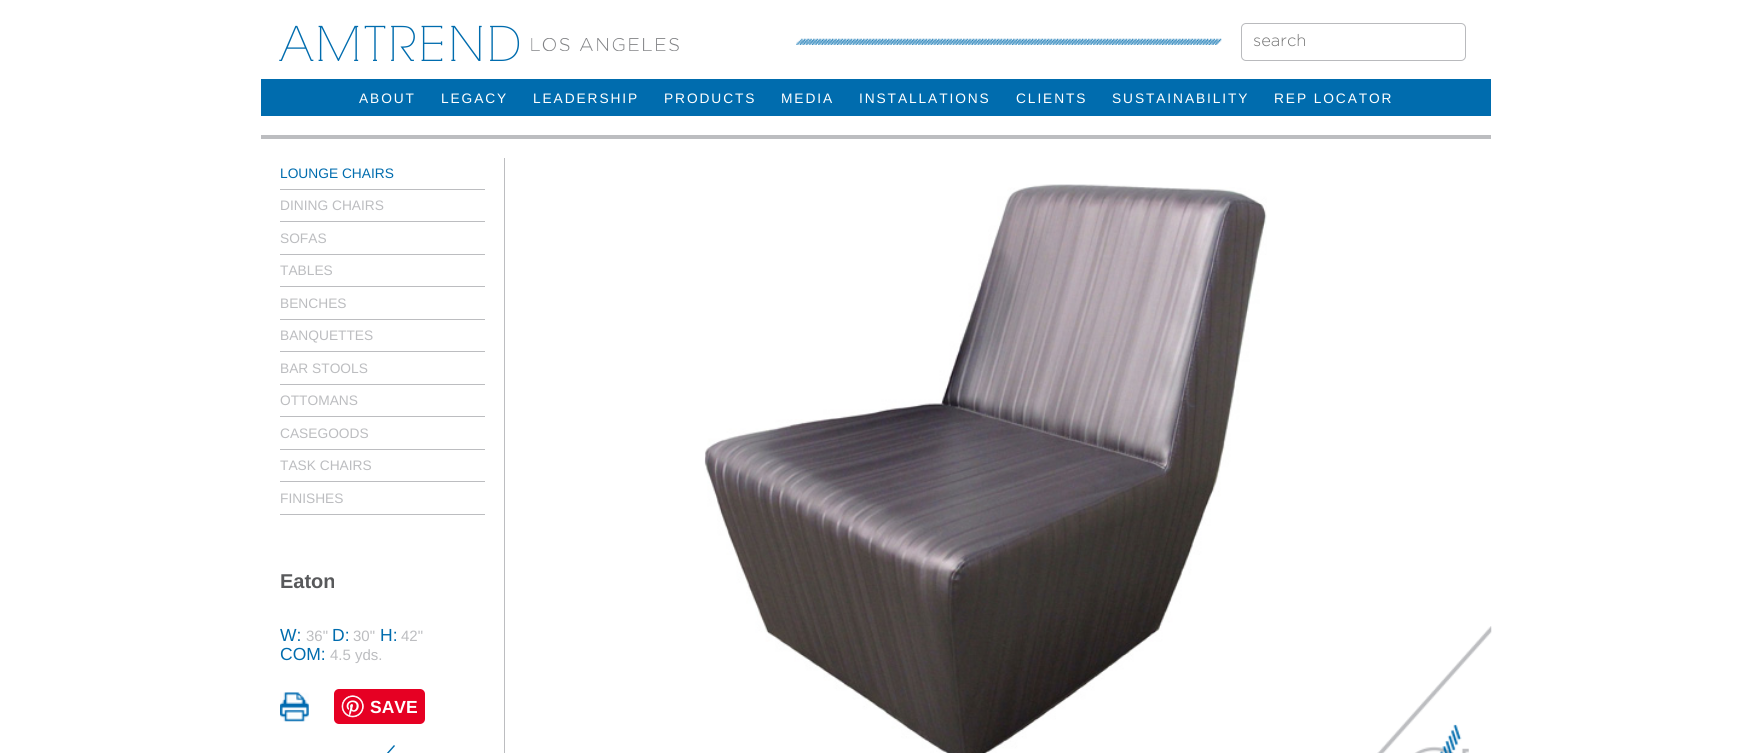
import math
import cairo

surface = cairo.ImageSurface(cairo.FORMAT_RGB24, 1752, 753)
ctx = cairo.Context(surface)
options = cairo.FontOptions()
options.set_hint_metrics(cairo.HINT_METRICS_OFF)
options.set_hint_style(cairo.HINT_STYLE_NONE)
ctx.set_font_options(options)
ctx.set_miter_limit(4)


def set_color(code):
    ctx.set_source_rgb(*(v / 255 for v in bytes.fromhex(code[-6:])))


def draw_text(x, y, s, family, size, color, bold=False, italic=False):
    ctx.select_font_face(family, cairo.FONT_SLANT_ITALIC if italic else cairo.FONT_SLANT_NORMAL, cairo.FONT_WEIGHT_BOLD if bold else cairo.FONT_WEIGHT_NORMAL)
    ctx.set_font_size(size)
    set_color(color)
    ctx.move_to(x, y)
    ctx.show_text(s)


def draw_spaced(x, y, s, letter, word):
    ctx.move_to(x, y)
    for ch in s:
        ctx.show_text(ch)
        ctx.rel_move_to(letter + word * (ch == ' '), 0)


def fill_rect(x, y, w, h, color):
    set_color(color)
    ctx.rectangle(x, y, w, h)
    ctx.fill()


def rounded_rect(x, y, w, h, r):
    ctx.new_sub_path()
    for i, (u, v) in enumerate([(x + w - r, y + h - r), (x + r, y + h - r), (x + r, y + r), (x + w - r, y + r)]):
        ctx.arc(u, v, r, i * math.pi / 2, (i + 1) * math.pi / 2)
    ctx.close_path()


def draw_image(path, x, y, w, h):
    ctx.save()
    ctx.set_source_surface(cairo.ImageSurface.create_from_png(path), x, y)
    ctx.rectangle(x, y, w, h)
    ctx.fill()
    ctx.restore()


set_color("#ffffff")
ctx.paint()
ctx.select_font_face("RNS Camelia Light")
ctx.set_font_size(47.5)
set_color("#006cae")
draw_spaced(280, 61, "AMTREND", 3.75, 0)
draw_image("assets/img1.png", 531, 38, 148, 14)
draw_image("assets/img2.png", 808, 38, 401, 7)
draw_image("assets/img3.png", 796, 38, 13, 7)
draw_image("assets/img4.png", 1208, 38, 14, 7)
rounded_rect(1241.5, 23.5, 224, 37, 4.5)
set_color("#b9babd")
ctx.set_line_width(1)
ctx.stroke()
draw_text(1253, 46, "search", "Gotham Light", 16.5, "#757575")
fill_rect(261, 79, 1230, 37, "#006cae")
ctx.select_font_face("Liberation Sans")
ctx.set_font_size(13.75)
set_color("#ffffff")
draw_spaced(359, 103, "ABOUT", 1.9, 0)
draw_spaced(441, 103, "LEGACY", 1.9, 0)
draw_spaced(533, 103, "LEADERSHIP", 1.9, 0)
draw_spaced(664, 103, "PRODUCTS", 1.9, 0)
draw_spaced(781, 103, "MEDIA", 1.9, 0)
draw_spaced(859, 103, "INSTALLATIONS", 1.9, 0)
draw_spaced(1016, 103, "CLIENTS", 1.9, 0)
draw_spaced(1112, 103, "SUSTAINABILITY", 1.9, 0)
draw_spaced(1274, 103, "REP LOCATOR", 1.9, 0)
fill_rect(261, 135, 1230, 4, "#bcbdc0")
fill_rect(504, 158, 1, 595, "#bcbdc0")
fill_rect(280, 189, 205, 1, "#bcbdc0")
draw_text(280, 178, "LOUNGE CHAIRS", "Liberation Sans", 13.75, "#006cae")
fill_rect(280, 221, 205, 1, "#bcbdc0")
draw_text(280, 210, "DINING CHAIRS", "Liberation Sans", 13.75, "#bcbdc0")
fill_rect(280, 254, 205, 1, "#bcbdc0")
draw_text(280, 243, "SOFAS", "Liberation Sans", 13.75, "#bcbdc0")
fill_rect(280, 286, 205, 1, "#bcbdc0")
draw_text(280, 275, "TABLES", "Liberation Sans", 13.75, "#bcbdc0")
fill_rect(280, 319, 205, 1, "#bcbdc0")
draw_text(280, 308, "BENCHES", "Liberation Sans", 13.75, "#bcbdc0")
fill_rect(280, 351, 205, 1, "#bcbdc0")
draw_text(280, 340, "BANQUETTES", "Liberation Sans", 13.75, "#bcbdc0")
fill_rect(280, 384, 205, 1, "#bcbdc0")
draw_text(280, 373, "BAR STOOLS", "Liberation Sans", 13.75, "#bcbdc0")
fill_rect(280, 416, 205, 1, "#bcbdc0")
draw_text(280, 405, "OTTOMANS", "Liberation Sans", 13.75, "#bcbdc0")
fill_rect(280, 449, 205, 1, "#bcbdc0")
draw_text(280, 438, "CASEGOODS", "Liberation Sans", 13.75, "#bcbdc0")
fill_rect(280, 481, 205, 1, "#bcbdc0")
draw_text(280, 470, "TASK CHAIRS", "Liberation Sans", 13.75, "#bcbdc0")
fill_rect(280, 514, 205, 1, "#bcbdc0")
draw_text(280, 503, "FINISHES", "Liberation Sans", 13.75, "#bcbdc0")
draw_text(280, 588, "Eaton", "Liberation Sans", 20, "#58595b", bold=True)
draw_text(280, 641, "W:", "Liberation Sans", 17.5, "#006cae")
draw_text(306, 641, "36\"", "Liberation Sans", 15, "#bcbdc0")
draw_text(332, 641, "D:", "Liberation Sans", 17.5, "#006cae")
draw_text(353, 641, "30\"", "Liberation Sans", 15, "#bcbdc0")
draw_text(380, 641, "H:", "Liberation Sans", 17.5, "#006cae")
draw_text(401, 641, "42\"", "Liberation Sans", 15, "#bcbdc0")
draw_text(280, 660, "COM:", "Liberation Sans", 17.5, "#006cae")
draw_text(330, 660, "4.5 yds.", "Liberation Sans", 15, "#bcbdc0")
draw_image("assets/img5.png", 280, 692, 29, 30)
set_color("#e60023")
rounded_rect(334, 689, 91, 35, 5)
ctx.fill()
draw_image("assets/img6.png", 341, 695, 23, 23)
draw_text(370, 713, "SAVE", "Liberation Sans", 17.5, "#ffffff", bold=True)
set_color("#006cae")
ctx.new_path()
ctx.move_to(369, 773)
ctx.line_to(394, 745)
ctx.line_to(395, 746)
ctx.line_to(371, 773)
ctx.line_to(395, 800)
ctx.line_to(394, 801)
ctx.close_path()
ctx.fill()
draw_image("assets/img7.png", 704, 184, 563, 569)
draw_image("assets/img8.png", 1377, 626, 115, 127)
surface.write_to_png("output.png")
